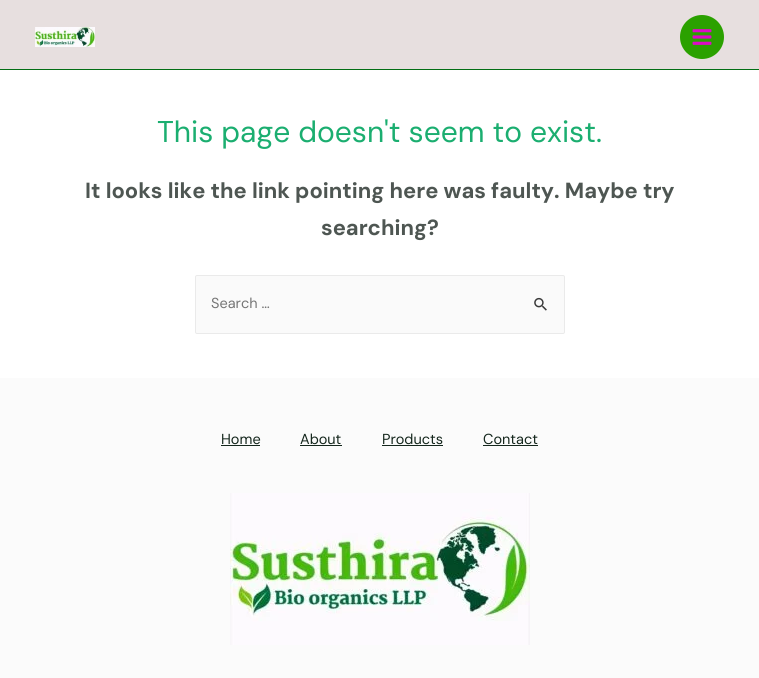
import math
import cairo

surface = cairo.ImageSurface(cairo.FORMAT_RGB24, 759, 678)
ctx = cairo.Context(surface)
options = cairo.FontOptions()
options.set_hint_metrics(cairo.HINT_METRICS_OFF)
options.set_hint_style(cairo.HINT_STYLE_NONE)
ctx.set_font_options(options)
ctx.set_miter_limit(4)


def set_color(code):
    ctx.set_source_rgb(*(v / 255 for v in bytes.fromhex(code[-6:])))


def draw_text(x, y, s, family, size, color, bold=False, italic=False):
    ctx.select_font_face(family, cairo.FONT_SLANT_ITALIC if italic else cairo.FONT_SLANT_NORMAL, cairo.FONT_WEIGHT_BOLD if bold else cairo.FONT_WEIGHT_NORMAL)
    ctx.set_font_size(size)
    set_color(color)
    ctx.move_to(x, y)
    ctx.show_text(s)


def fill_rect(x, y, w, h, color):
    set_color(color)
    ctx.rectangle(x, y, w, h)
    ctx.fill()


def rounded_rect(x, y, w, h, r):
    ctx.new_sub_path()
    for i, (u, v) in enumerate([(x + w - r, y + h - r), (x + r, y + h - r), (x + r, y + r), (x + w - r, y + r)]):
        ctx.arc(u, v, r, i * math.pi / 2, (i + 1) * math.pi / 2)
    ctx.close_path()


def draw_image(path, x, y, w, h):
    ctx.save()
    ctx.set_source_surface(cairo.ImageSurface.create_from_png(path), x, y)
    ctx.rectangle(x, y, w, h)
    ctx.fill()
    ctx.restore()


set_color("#ffffff")
ctx.paint()
fill_rect(0, 0, 759, 69, "#e7dfdf")
fill_rect(0, 69, 759, 1, "#036e15")
draw_image("assets/img1.png", 35, 27, 60, 20)
set_color("#2ba100")
ctx.arc(702, 37, 22, 0, 2 * math.pi)
ctx.fill()
draw_image("assets/img2.png", 692, 29, 20, 16)
draw_text(157, 142, "This page doesn't seem to exist.", "DM Sans", 30, "#1bae70")
draw_text(85, 198, "It looks like the link pointing here was faulty. Maybe try", "DM Sans", 21.9, "#4e5652", bold=True)
draw_text(321, 235, "searching?", "DM Sans", 21.9, "#4e5652", bold=True)
set_color("#fafafa")
rounded_rect(195.5, 275.5, 369, 58, 1.5)
ctx.fill_preserve()
set_color("#eaeaea")
ctx.set_line_width(1)
ctx.stroke()
draw_text(211, 308, "Search …", "DM Sans", 14.5, "#757575")
draw_image("assets/img3.png", 534, 297, 13, 14)
fill_rect(0, 378, 759, 300, "#fbfbfb")
draw_text(221, 444, "Home", "DM Sans", 14.5, "#14261c")
fill_rect(221, 445, 39, 1, "#14261c")
draw_text(300, 444, "About", "DM Sans", 14.5, "#14261c")
fill_rect(300, 445, 42, 1, "#14261c")
draw_text(382, 444, "Products", "DM Sans", 14.5, "#14261c")
fill_rect(382, 445, 61, 1, "#14261c")
draw_text(483, 444, "Contact", "DM Sans", 14.5, "#14261c")
fill_rect(483, 445, 55, 1, "#14261c")
draw_image("assets/img4.png", 230, 493, 300, 152)
surface.write_to_png("output.png")
